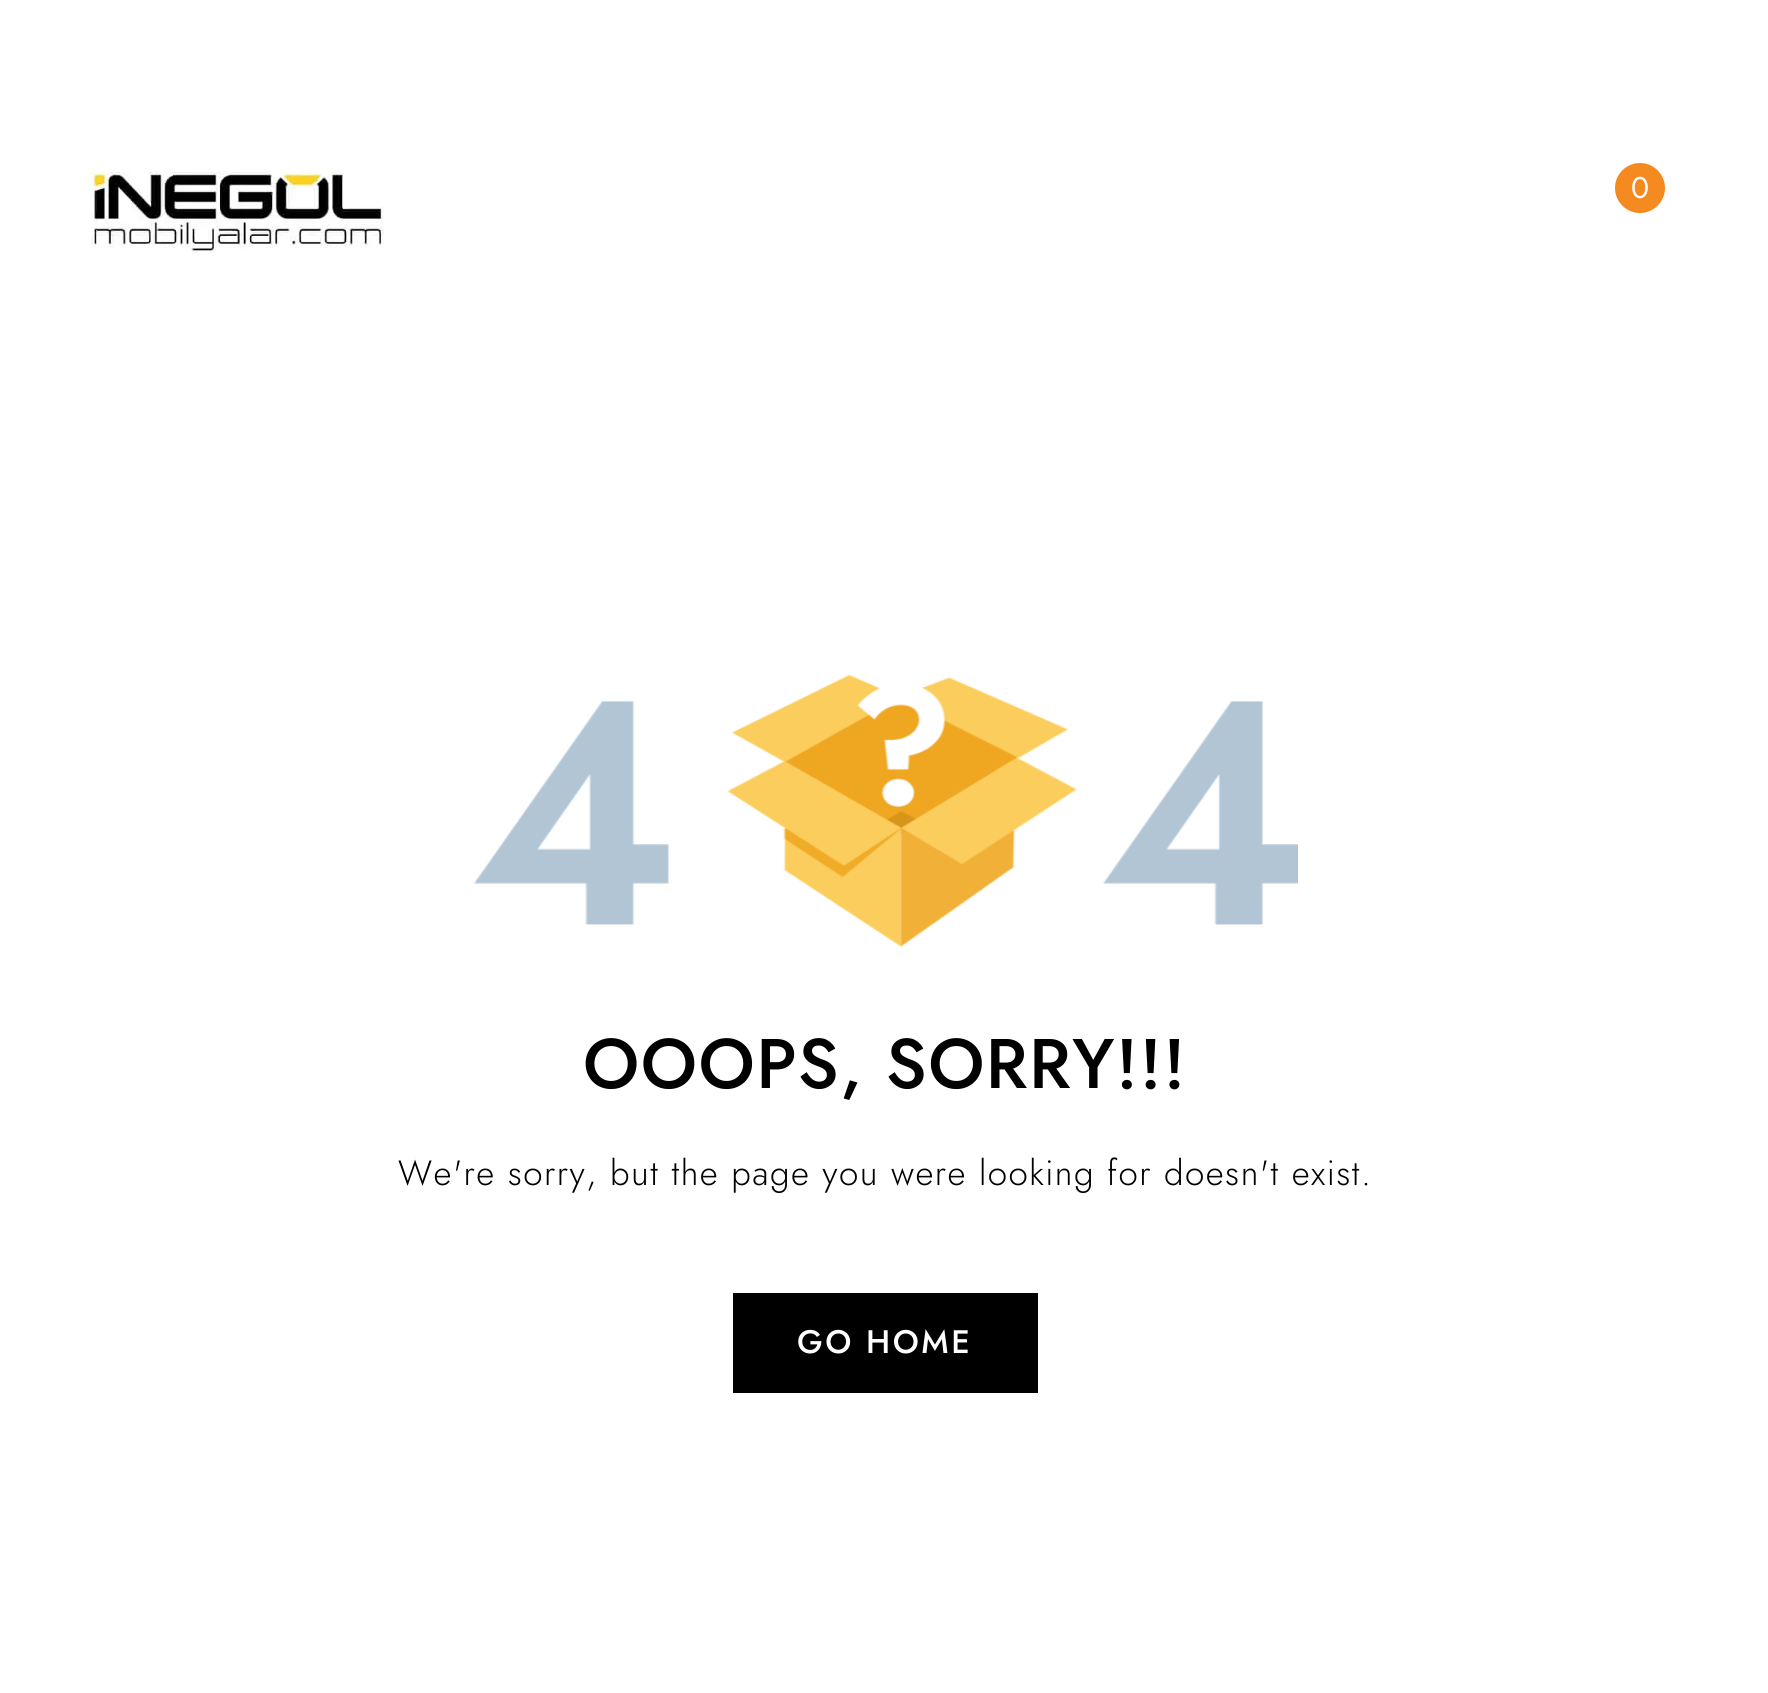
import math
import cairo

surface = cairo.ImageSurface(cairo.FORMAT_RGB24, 1768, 1693)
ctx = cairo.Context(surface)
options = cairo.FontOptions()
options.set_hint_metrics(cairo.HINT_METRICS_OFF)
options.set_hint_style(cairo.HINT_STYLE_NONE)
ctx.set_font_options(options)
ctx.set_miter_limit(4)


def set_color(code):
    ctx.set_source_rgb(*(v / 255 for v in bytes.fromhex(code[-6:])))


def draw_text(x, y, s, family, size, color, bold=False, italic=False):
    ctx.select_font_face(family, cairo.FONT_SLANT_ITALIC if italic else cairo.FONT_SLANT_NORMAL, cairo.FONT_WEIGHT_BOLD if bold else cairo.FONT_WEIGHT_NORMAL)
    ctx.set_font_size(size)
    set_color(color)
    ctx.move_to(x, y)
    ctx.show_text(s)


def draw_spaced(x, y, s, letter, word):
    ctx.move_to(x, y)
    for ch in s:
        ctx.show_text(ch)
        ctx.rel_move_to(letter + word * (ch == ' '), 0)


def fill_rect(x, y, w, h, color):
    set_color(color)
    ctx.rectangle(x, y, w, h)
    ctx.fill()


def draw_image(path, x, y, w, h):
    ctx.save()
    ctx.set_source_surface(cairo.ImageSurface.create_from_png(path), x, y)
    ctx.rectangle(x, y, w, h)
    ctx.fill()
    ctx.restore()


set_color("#ffffff")
ctx.paint()
draw_image("assets/img1.png", 83, 165, 301, 88)
set_color("#f58a20")
ctx.arc(1640, 188, 25, 0, 2 * math.pi)
ctx.fill()
draw_text(1631, 198, "0", "Jost", 30, "#ffffff")
draw_image("assets/img2.png", 474, 675, 824, 272)
ctx.select_font_face("Jost Medium")
ctx.set_font_size(70)
set_color("#000000")
draw_spaced(583, 1088, "OOOPS, SORRY!!!", 1.5, 0)
ctx.select_font_face("Jost Light")
ctx.set_font_size(35)
draw_spaced(398, 1185, "We're sorry, but the page you were looking for doesn't exist.", 1.5, 0)
fill_rect(733, 1293, 305, 100, "#000000")
ctx.select_font_face("Jost Medium")
ctx.set_font_size(32.5)
set_color("#ffffff")
draw_spaced(797, 1353, "GO HOME", 2.5, 0)
surface.write_to_png("output.png")
